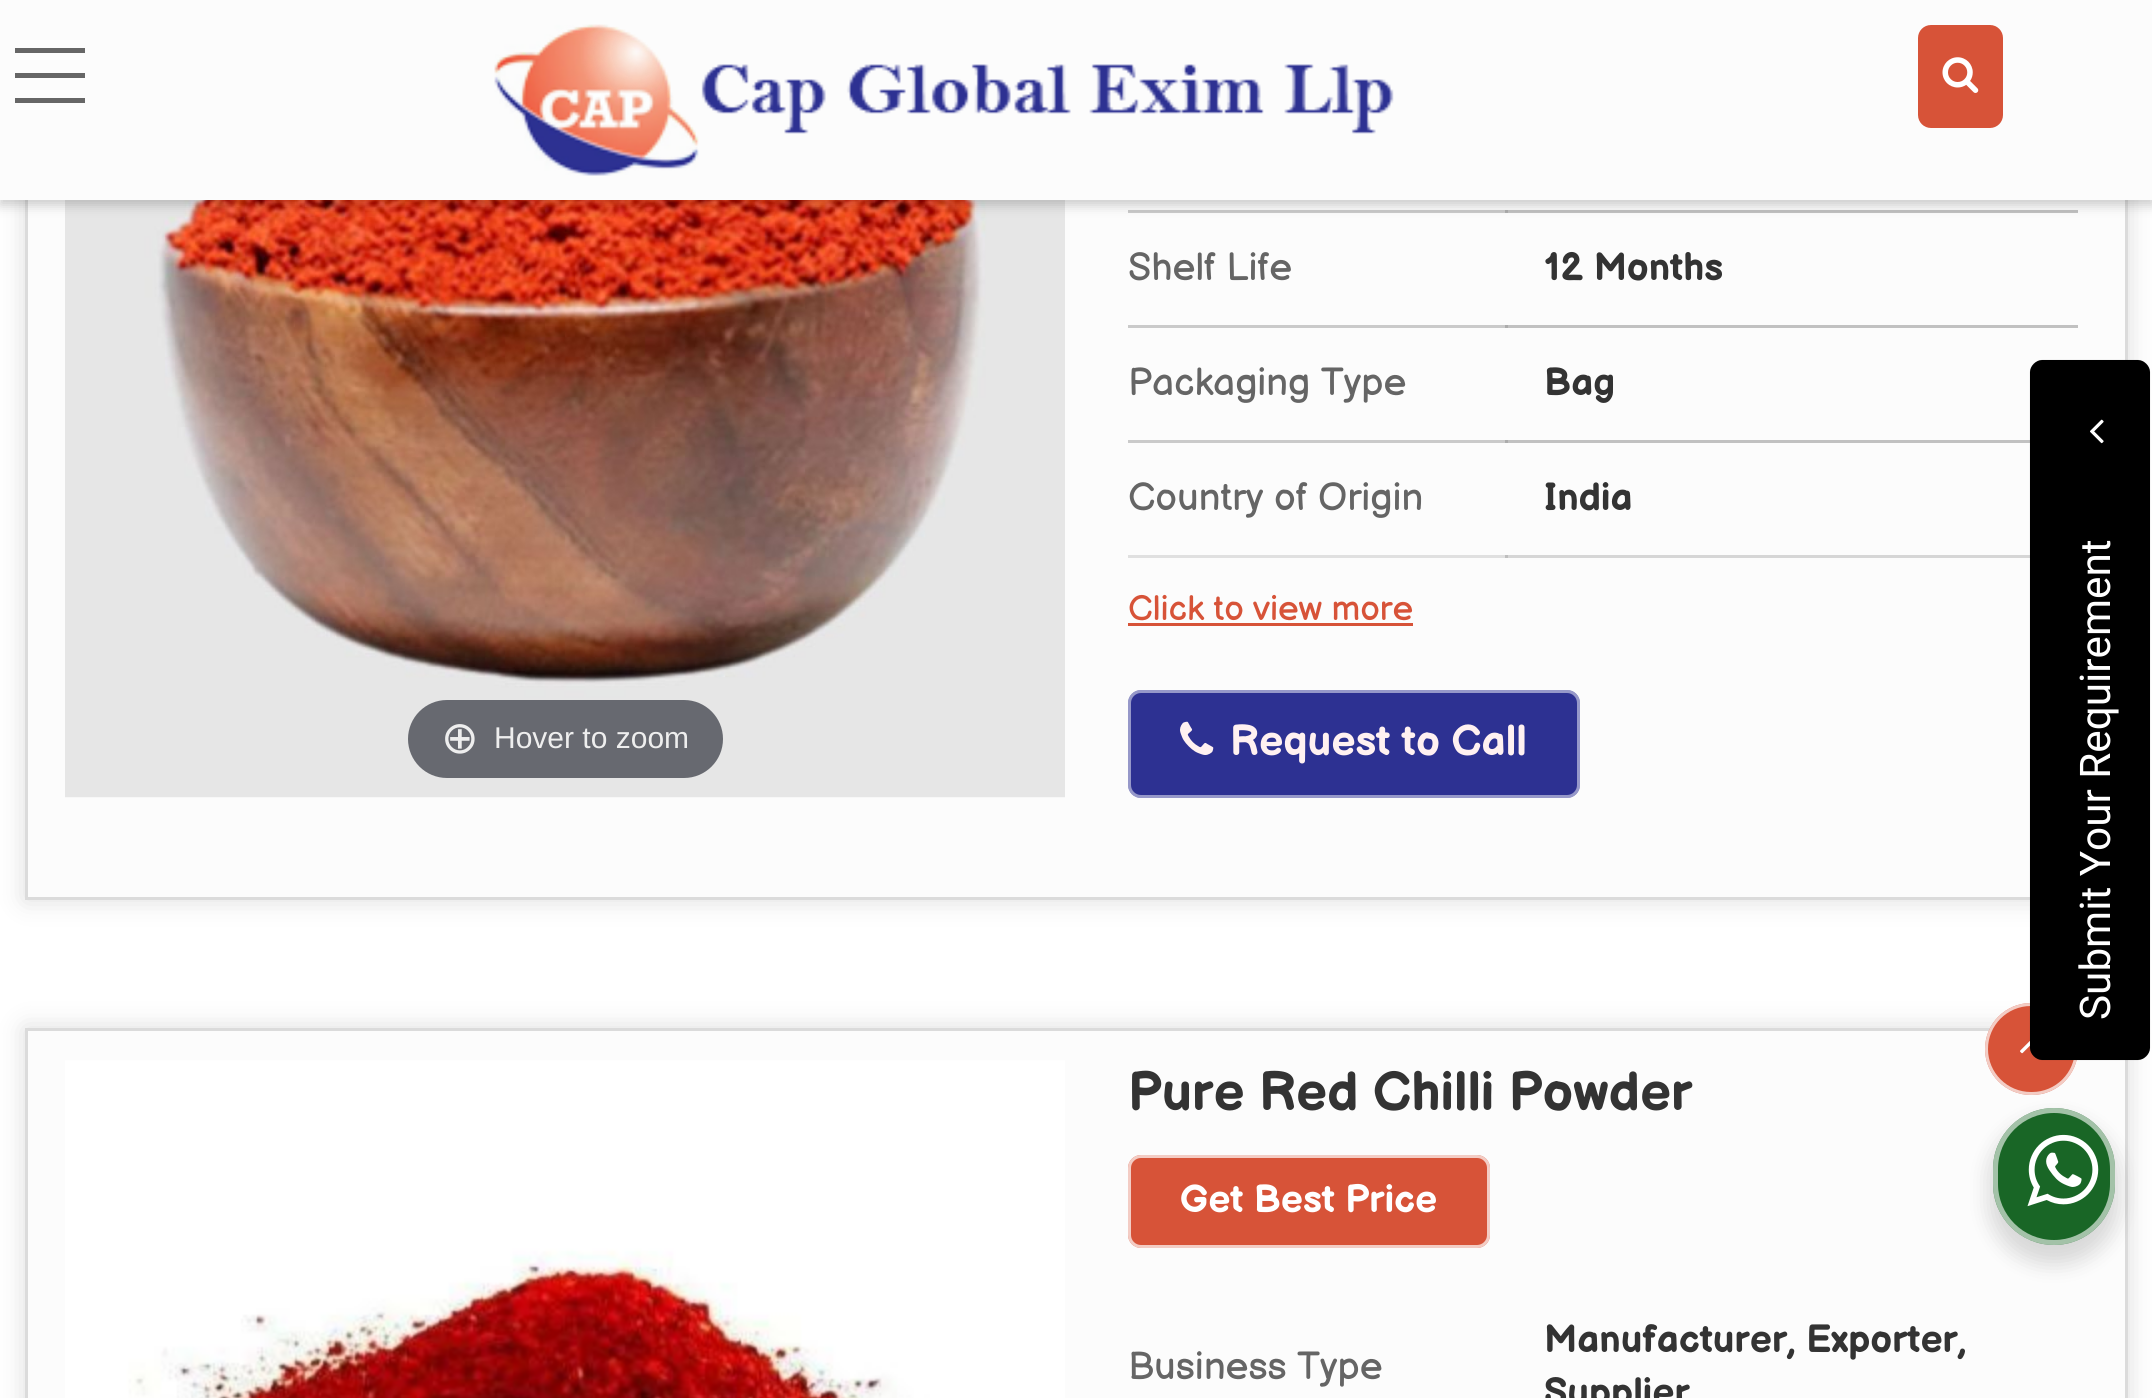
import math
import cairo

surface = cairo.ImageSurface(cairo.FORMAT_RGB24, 2152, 1398)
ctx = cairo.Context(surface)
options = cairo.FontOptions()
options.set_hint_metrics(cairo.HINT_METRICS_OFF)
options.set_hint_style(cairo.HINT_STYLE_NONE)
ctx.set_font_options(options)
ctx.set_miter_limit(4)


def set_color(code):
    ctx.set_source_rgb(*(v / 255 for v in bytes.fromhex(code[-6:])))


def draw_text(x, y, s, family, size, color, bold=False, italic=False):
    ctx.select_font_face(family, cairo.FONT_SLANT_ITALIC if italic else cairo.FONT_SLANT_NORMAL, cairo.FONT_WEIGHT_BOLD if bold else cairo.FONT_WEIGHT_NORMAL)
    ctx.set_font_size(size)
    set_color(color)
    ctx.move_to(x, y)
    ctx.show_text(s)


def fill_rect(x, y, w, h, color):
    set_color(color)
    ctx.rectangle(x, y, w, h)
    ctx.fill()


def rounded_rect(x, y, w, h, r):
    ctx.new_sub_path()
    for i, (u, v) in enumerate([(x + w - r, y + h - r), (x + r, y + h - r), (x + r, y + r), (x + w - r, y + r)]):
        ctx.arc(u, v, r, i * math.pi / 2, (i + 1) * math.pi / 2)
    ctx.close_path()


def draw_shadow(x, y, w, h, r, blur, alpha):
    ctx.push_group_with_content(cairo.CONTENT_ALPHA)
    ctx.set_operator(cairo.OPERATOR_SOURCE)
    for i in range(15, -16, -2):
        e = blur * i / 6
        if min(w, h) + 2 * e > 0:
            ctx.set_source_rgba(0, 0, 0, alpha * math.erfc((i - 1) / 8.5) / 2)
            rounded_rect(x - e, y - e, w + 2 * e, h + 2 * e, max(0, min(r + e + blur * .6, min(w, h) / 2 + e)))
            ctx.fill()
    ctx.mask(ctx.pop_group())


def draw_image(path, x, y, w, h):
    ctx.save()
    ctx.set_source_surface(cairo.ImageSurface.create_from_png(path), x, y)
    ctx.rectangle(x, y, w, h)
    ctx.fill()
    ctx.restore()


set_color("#ffffff")
ctx.paint()
set_color("#cccccc")
draw_shadow(25, -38, 2103, 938, 0, 12.5, 0.67)
fill_rect(28, 200, 2097, 697, "#fcfcfc")
fill_rect(1128, 555, 380, 3, "#e0e0e0")
ctx.rectangle(26.5, -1.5, 2100, 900)
set_color("#dbdbdb")
ctx.set_line_width(3)
ctx.stroke()
draw_image("assets/img3.png", 65, 200, 1000, 597)
fill_rect(1128, 210, 380, 3, "#cacaca")
fill_rect(1505, 210, 573, 3, "#c1c1c1")
fill_rect(1505, 210, 3, 3, "#acacac")
set_color("#000000")
draw_shadow(0, 5, 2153, 200, 0, 6, 0.2)
fill_rect(0, 0, 2152, 200, "#fcfcfc")
draw_image("assets/img1.png", 494, 24, 900, 152)
fill_rect(15, 73, 70, 5, "#666666")
fill_rect(15, 48, 70, 5, "#666666")
fill_rect(15, 98, 70, 5, "#666666")
set_color("#d75338")
rounded_rect(1918, 25, 85, 103, 13)
ctx.fill()
draw_image("assets/img2.png", 1942, 57, 37, 36)
set_color("#676970")
rounded_rect(408, 700, 315, 78, 39)
ctx.fill()
draw_text(441, 753, "⊕", "DejaVu Sans", 45, "#eeeeee")
draw_text(494, 748, "Hover to zoom", "Liberation Sans", 30, "#eeeeee")
fill_rect(65, 797, 1000, 1, "#f7f7f7")
draw_text(1128, 280, "Shelf Life", "Balsamiq Sans", 38.5, "#656565")
fill_rect(1128, 325, 380, 3, "#cacaca")
fill_rect(1505, 325, 573, 3, "#c1c1c1")
fill_rect(1505, 325, 3, 3, "#acacac")
draw_text(1544, 280, "12 Months", "Balsamiq Sans", 38.5, "#333333", bold=True)
draw_text(1128, 395, "Packaging Type", "Balsamiq Sans", 38.5, "#656565")
fill_rect(1128, 440, 380, 3, "#cacaca")
fill_rect(1505, 440, 525, 3, "#c1c1c1")
fill_rect(1505, 440, 3, 3, "#acacac")
draw_text(1544, 395, "Bag", "Balsamiq Sans", 38.5, "#333333", bold=True)
draw_text(1128, 510, "Country of Origin", "Balsamiq Sans", 38.5, "#656565")
fill_rect(1505, 555, 525, 3, "#d6d6d6")
fill_rect(1505, 555, 3, 3, "#bebebe")
draw_text(1544, 510, "India", "Balsamiq Sans", 38.5, "#333333", bold=True)
draw_text(1128, 620, "Click to view more", "Balsamiq Sans", 34.75, "#d75338")
fill_rect(1128, 623, 285, 3, "#d75338")
set_color("#2d3192")
rounded_rect(1128, 690, 452, 108, 13)
ctx.fill()
rounded_rect(1129.5, 691.5, 449, 105, 11.5)
ctx.set_source_rgba(1, 1, 1, 0.5)
ctx.stroke()
draw_image("assets/img4.png", 1180, 721, 34, 34)
draw_text(1230, 755, "Request to Call", "Balsamiq Sans", 42.25, "#fff1f1", bold=True)
set_color("#cccccc")
draw_shadow(25, 1028, 2103, 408, 0, 12.5, 0.67)
set_color("#fcfcfc")
ctx.rectangle(26.5, 1029.5, 2100, 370)
ctx.fill_preserve()
set_color("#dbdbdb")
ctx.stroke()
draw_image("assets/img5.png", 65, 1060, 1000, 338)
draw_text(1128, 1110, "Pure Red Chilli Powder", "Balsamiq Sans", 53.9, "#333333", bold=True)
set_color("#d75338")
rounded_rect(1128, 1155, 362, 93, 13)
ctx.fill()
rounded_rect(1129.5, 1156.5, 359, 90, 11.5)
ctx.set_source_rgba(1, 1, 1, 0.7)
ctx.stroke()
draw_text(1180, 1212, "Get Best Price", "Balsamiq Sans", 38.5, "#ffffff", bold=True)
draw_text(1128, 1379, "Business Type", "Balsamiq Sans", 38.5, "#656565")
draw_text(1544, 1352, "Manufacturer, Exporter,", "Balsamiq Sans", 38.5, "#333333", bold=True)
draw_text(1544, 1405, "Supplier", "Balsamiq Sans", 38.5, "#333333", bold=True)
set_color("#d75338")
rounded_rect(1985, 1003, 93, 92, 46)
ctx.fill()
rounded_rect(1986.5, 1004.5, 90, 89, 44.5)
ctx.set_source_rgba(1, 1, 1, 0.7)
ctx.stroke()
set_color("#000000")
ctx.new_path()
ctx.move_to(2030, 1048)
ctx.line_to(2030, 372)
ctx.curve_to(2030, 366, 2036, 360, 2042, 360)
ctx.line_to(2138, 360)
ctx.curve_to(2144, 360, 2150, 366, 2150, 372)
ctx.line_to(2150, 1048)
ctx.curve_to(2150, 1054, 2144, 1060, 2138, 1060)
ctx.line_to(2042, 1060)
ctx.curve_to(2036, 1060, 2030, 1054, 2030, 1048)
ctx.close_path()
ctx.fill()
draw_image("assets/img7.png", 2020, 1041, 10, 13)
ctx.new_path()
ctx.move_to(2031, 1047.5)
ctx.line_to(2031, 372.5)
ctx.curve_to(2031, 366.5, 2036.5, 361, 2042.5, 361)
ctx.line_to(2137.5, 361)
ctx.curve_to(2143.5, 361, 2149, 366.5, 2149, 372.5)
ctx.line_to(2149, 1047.5)
ctx.curve_to(2149, 1053.5, 2143.5, 1059, 2137.5, 1059)
ctx.line_to(2042.5, 1059)
ctx.curve_to(2036.5, 1059, 2031, 1053.5, 2031, 1047.5)
ctx.close_path()
ctx.set_source_rgba(0, 0, 0, 0.13)
ctx.set_line_width(2.5)
ctx.stroke()
draw_image("assets/img6.png", 2090, 419, 14, 25)
ctx.save()
ctx.translate(2110, 1020)
ctx.rotate(-90 * math.pi / 180)
draw_text(0, 0, "Submit Your Requirement", "Roboto", 42.25, "#ffffff")
ctx.restore()
set_color("#000000")
draw_shadow(1988, 1118, 132, 147, 66, 10, 0.14)
set_color("#196626")
rounded_rect(1993, 1108, 122, 137, 61)
ctx.fill()
rounded_rect(1995.5, 1110.5, 117, 132, 58.5)
ctx.set_source_rgba(1, 1, 1, 0.6)
ctx.set_line_width(5)
ctx.stroke()
draw_image("assets/img8.png", 2027, 1134, 72, 73)
surface.write_to_png("output.png")
